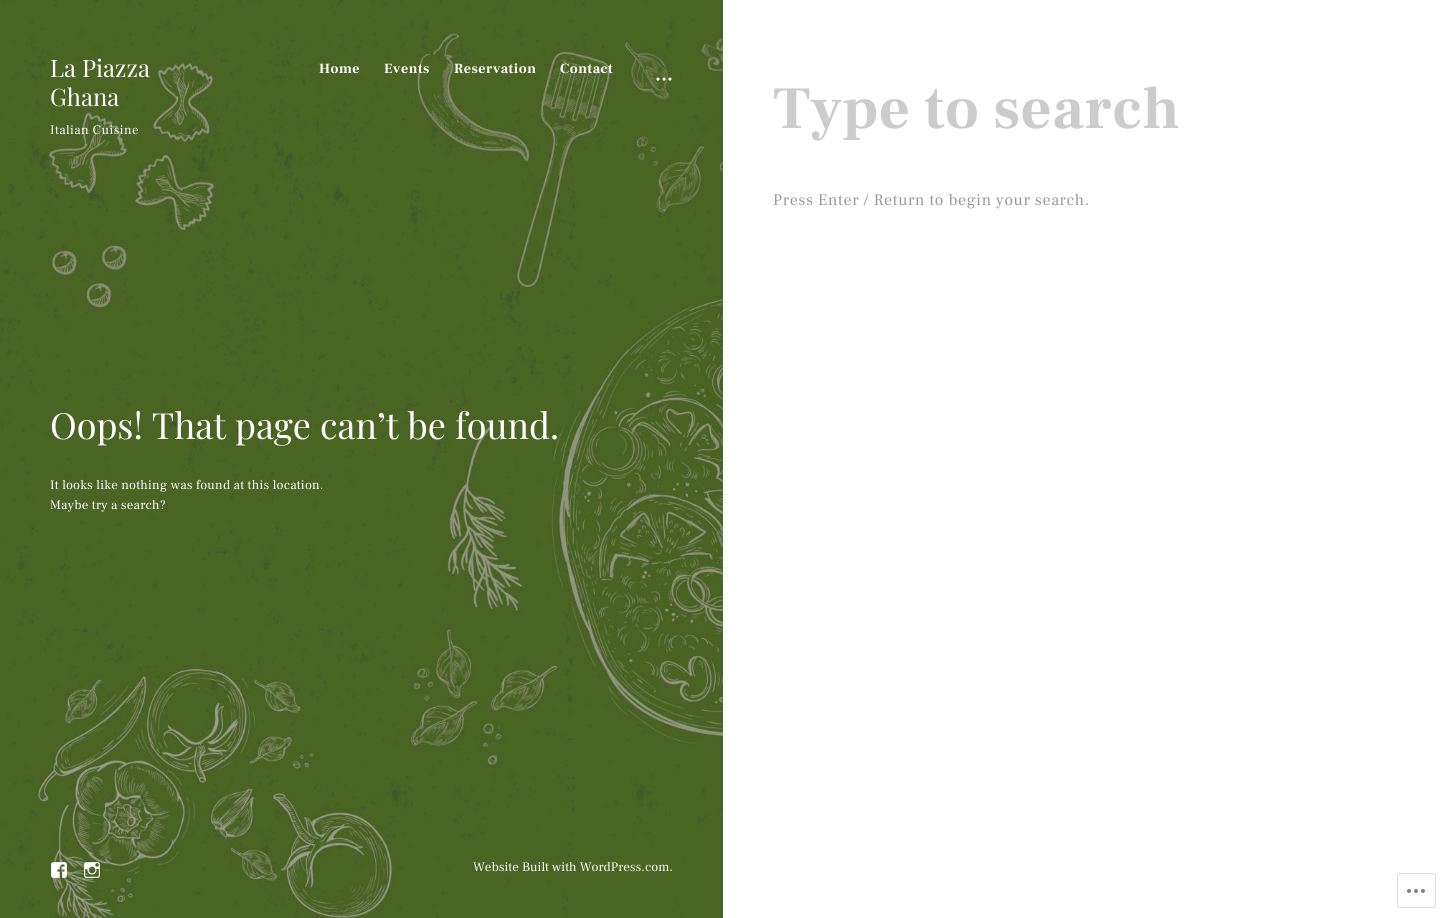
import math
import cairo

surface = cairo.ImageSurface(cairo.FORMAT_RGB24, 1446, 918)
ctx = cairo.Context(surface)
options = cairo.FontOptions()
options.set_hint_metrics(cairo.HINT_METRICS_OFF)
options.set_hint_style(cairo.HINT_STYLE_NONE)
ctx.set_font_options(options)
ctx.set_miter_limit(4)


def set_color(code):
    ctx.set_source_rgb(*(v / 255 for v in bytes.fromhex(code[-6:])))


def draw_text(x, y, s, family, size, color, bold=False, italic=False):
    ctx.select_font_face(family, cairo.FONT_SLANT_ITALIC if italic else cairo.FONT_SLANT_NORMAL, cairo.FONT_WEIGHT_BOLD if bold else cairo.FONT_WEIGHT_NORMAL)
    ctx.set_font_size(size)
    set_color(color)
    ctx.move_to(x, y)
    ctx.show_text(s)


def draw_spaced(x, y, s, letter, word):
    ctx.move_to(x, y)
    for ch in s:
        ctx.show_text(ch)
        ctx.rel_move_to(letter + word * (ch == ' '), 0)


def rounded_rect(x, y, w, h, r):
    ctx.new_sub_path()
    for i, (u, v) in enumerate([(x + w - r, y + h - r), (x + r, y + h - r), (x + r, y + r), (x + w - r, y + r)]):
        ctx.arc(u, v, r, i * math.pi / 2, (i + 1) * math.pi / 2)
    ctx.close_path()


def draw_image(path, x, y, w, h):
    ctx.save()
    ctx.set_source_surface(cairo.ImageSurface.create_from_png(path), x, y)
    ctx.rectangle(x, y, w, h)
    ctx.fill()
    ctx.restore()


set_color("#ffffff")
ctx.paint()
draw_image("assets/img2.png", 0, 0, 723, 918)
draw_text(50, 77, "La Piazza", "Playfair Display", 24, "#ffffff")
draw_text(50, 106, "Ghana", "Playfair Display", 24, "#ffffff")
ctx.select_font_face("Frank Ruhl Libre")
ctx.set_font_size(13)
draw_spaced(50, 134, "Italian Cuisine", 0.4, 0)
ctx.select_font_face("Frank Ruhl Libre", cairo.FONT_SLANT_NORMAL, cairo.FONT_WEIGHT_BOLD)
ctx.set_font_size(14)
draw_spaced(319, 73, "Home", 0.5, 0)
draw_spaced(384, 73, "Events", 0.5, 0)
draw_spaced(454, 73, "Reservation", 0.5, 0)
draw_spaced(560, 73, "Contact", 0.5, 0)
draw_image("assets/img1.png", 656, 77, 16, 4)
ctx.set_font_size(60)
set_color("#cccccc")
draw_spaced(773, 128, "Type to search", 0.5, 0)
ctx.select_font_face("Frank Ruhl Libre")
ctx.set_font_size(16)
set_color("#999999")
draw_spaced(773, 205, "Press Enter / Return to begin your search.", 0.6, 0)
draw_text(50, 439, "Oops! That page can’t be found.", "Playfair Display", 36, "#ffffff")
ctx.select_font_face("Frank Ruhl Libre")
ctx.set_font_size(13)
draw_spaced(50, 489, "It looks like nothing was found at this location.", 0.2, 0)
draw_spaced(50, 509, "Maybe try a search?", 0.2, 0)
draw_image("assets/img3.png", 51, 862, 16, 16)
draw_image("assets/img4.png", 84, 862, 16, 16)
draw_text(473, 871, "Website Built with WordPress.com.", "Frank Ruhl Libre", 13, "#ffffff")
rounded_rect(1397.5, 873.5, 38, 34, 2.5)
set_color("#dddddf")
ctx.set_line_width(1)
ctx.stroke()
draw_image("assets/img5.png", 1407, 889, 18, 4)
surface.write_to_png("output.png")
